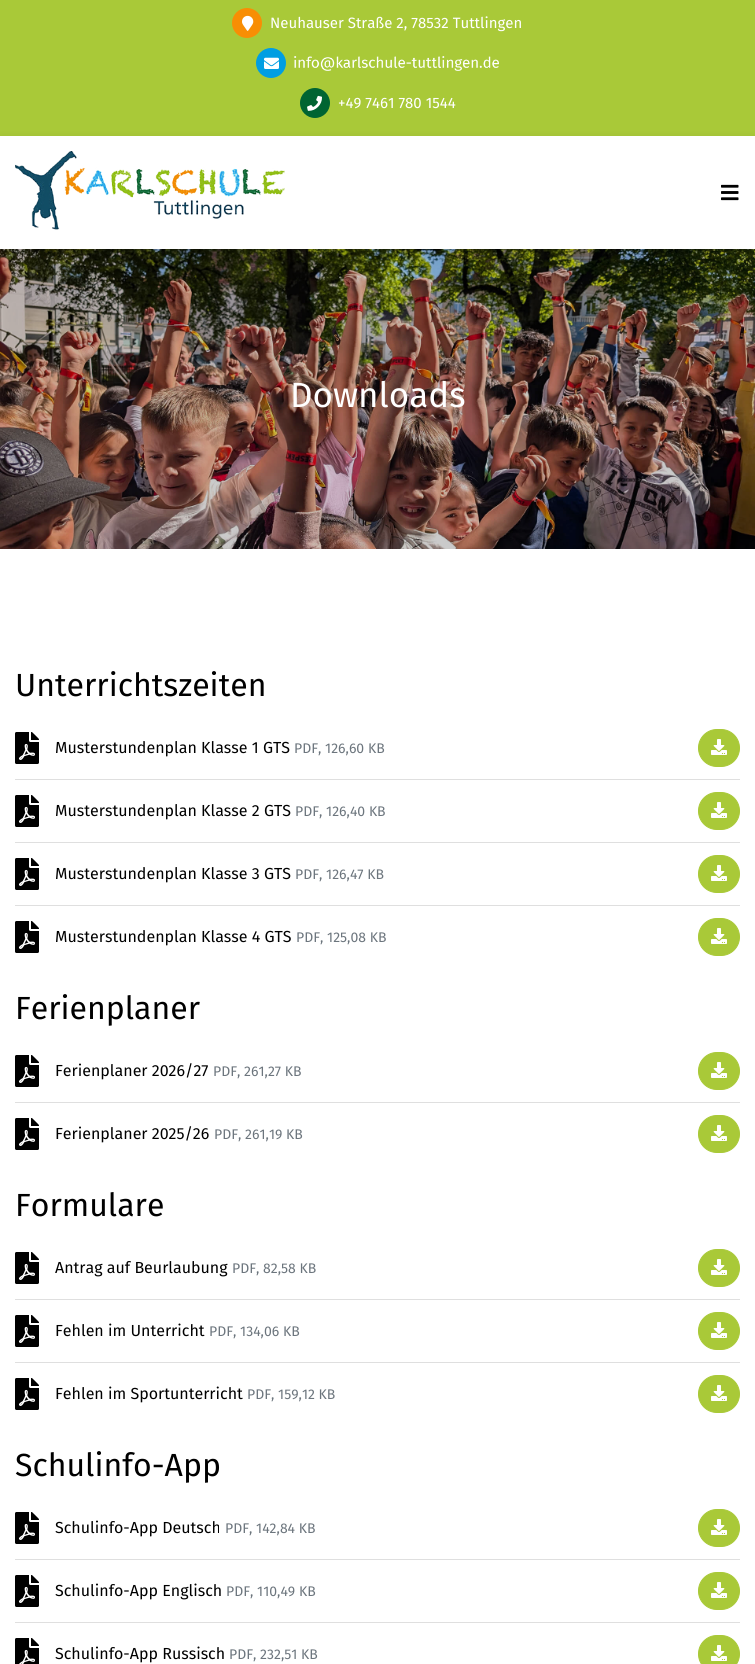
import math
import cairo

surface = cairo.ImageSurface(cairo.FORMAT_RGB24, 755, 1664)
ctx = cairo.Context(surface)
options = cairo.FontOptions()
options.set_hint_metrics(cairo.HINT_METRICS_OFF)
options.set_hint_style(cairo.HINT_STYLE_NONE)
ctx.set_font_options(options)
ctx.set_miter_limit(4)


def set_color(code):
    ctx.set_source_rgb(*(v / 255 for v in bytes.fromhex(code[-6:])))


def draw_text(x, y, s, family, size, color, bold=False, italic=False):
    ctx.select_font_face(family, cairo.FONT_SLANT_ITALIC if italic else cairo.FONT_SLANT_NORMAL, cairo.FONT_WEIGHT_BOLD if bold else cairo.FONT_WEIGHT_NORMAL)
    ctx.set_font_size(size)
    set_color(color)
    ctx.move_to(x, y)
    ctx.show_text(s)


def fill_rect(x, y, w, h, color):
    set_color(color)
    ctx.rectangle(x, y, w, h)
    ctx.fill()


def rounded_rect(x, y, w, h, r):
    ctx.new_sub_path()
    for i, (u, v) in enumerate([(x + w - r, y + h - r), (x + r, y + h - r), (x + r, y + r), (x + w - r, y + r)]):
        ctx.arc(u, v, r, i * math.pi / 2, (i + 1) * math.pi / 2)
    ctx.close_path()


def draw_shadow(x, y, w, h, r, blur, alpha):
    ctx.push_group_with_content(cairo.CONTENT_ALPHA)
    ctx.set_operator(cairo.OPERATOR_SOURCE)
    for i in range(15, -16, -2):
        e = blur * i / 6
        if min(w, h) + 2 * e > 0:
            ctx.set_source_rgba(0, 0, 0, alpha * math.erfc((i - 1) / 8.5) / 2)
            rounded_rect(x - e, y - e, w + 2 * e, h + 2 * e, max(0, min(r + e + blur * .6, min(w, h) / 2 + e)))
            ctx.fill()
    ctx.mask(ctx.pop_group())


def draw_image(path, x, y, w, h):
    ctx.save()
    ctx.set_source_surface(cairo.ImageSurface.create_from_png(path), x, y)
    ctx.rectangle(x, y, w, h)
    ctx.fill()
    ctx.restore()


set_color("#ffffff")
ctx.paint()
fill_rect(0, 0, 755, 136, "#a9c938")
set_color("#f88e04")
ctx.arc(247, 23, 15, 0, 2 * math.pi)
ctx.fill()
draw_image("assets/img1.png", 242, 15, 12, 16)
draw_text(270, 28, "Neuhauser Straße 2, 78532 Tuttlingen", "Fira Sans", 15, "#ffffff")
set_color("#009ee2")
ctx.new_path()
ctx.arc(271, 63, 15, 0, 2 * math.pi)
ctx.fill()
draw_image("assets/img2.png", 264, 57, 15, 12)
draw_image("assets/img3.png", 294, 56, 205, 15)
set_color("#006432")
ctx.arc(315, 103, 15, 0, 2 * math.pi)
ctx.fill()
draw_image("assets/img4.png", 307, 95, 15, 16)
draw_text(338, 108, "+49 7461 780 1544", "Fira Sans", 15, "#ffffff")
draw_image("assets/img7.png", 0, 249, 755, 300)
ctx.save()
ctx.set_fill_rule(cairo.FILL_RULE_EVEN_ODD)
ctx.new_path()
ctx.move_to(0, 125)
ctx.line_to(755, 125)
ctx.line_to(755, 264)
ctx.line_to(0, 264)
ctx.close_path()
ctx.move_to(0, 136)
ctx.line_to(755, 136)
ctx.line_to(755, 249)
ctx.line_to(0, 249)
ctx.close_path()
ctx.clip()
set_color("#000000")
draw_shadow(0, 138, 755, 113, 0, 4, 0.1)
ctx.restore()
draw_image("assets/img5.png", 15, 151, 270, 79)
draw_image("assets/img6.png", 721, 184, 18, 17)
draw_text(290, 407, "Downloads", "Fira Sans", 35, "#ffffff")
draw_text(15, 696, "Unterrichtszeiten", "Fira Sans", 32, "#000000")
fill_rect(15, 779, 725, 1, "#dfdfdf")
draw_image("assets/img8.png", 15, 732, 24, 32)
draw_text(55, 753, "Musterstundenplan Klasse 1 GTS", "Fira Sans", 16, "#000000")
draw_text(294, 753, "PDF, 126,60 KB", "Fira Sans", 14, "#6c757d")
set_color("#a9c938")
rounded_rect(698.5, 729.5, 41, 37, 18.5)
ctx.fill_preserve()
ctx.set_line_width(1)
ctx.stroke()
draw_image("assets/img9.png", 711, 739, 16, 16)
fill_rect(15, 842, 725, 1, "#dfdfdf")
draw_image("assets/img8.png", 15, 795, 24, 32)
draw_text(55, 816, "Musterstundenplan Klasse 2 GTS", "Fira Sans", 16, "#000000")
draw_text(295, 816, "PDF, 126,40 KB", "Fira Sans", 14, "#6c757d")
set_color("#a9c938")
rounded_rect(698.5, 792.5, 41, 37, 18.5)
ctx.fill_preserve()
ctx.stroke()
draw_image("assets/img9.png", 711, 802, 16, 16)
fill_rect(15, 905, 725, 1, "#dfdfdf")
draw_image("assets/img8.png", 15, 858, 24, 32)
draw_text(55, 879, "Musterstundenplan Klasse 3 GTS", "Fira Sans", 16, "#000000")
draw_text(295, 879, "PDF, 126,47 KB", "Fira Sans", 14, "#6c757d")
set_color("#a9c938")
rounded_rect(698.5, 855.5, 41, 37, 18.5)
ctx.fill_preserve()
ctx.stroke()
draw_image("assets/img9.png", 711, 865, 16, 16)
draw_image("assets/img8.png", 15, 921, 24, 32)
draw_text(55, 942, "Musterstundenplan Klasse 4 GTS", "Fira Sans", 16, "#000000")
draw_text(296, 942, "PDF, 125,08 KB", "Fira Sans", 14, "#6c757d")
set_color("#a9c938")
rounded_rect(698.5, 918.5, 41, 37, 18.5)
ctx.fill_preserve()
ctx.stroke()
draw_image("assets/img9.png", 711, 928, 16, 16)
draw_text(15, 1019, "Ferienplaner", "Fira Sans", 32, "#000000")
fill_rect(15, 1102, 725, 1, "#dfdfdf")
draw_image("assets/img8.png", 15, 1055, 24, 32)
draw_text(55, 1076, "Ferienplaner 2026/27", "Fira Sans", 16, "#000000")
draw_text(213, 1076, "PDF, 261,27 KB", "Fira Sans", 14, "#6c757d")
set_color("#a9c938")
rounded_rect(698.5, 1052.5, 41, 37, 18.5)
ctx.fill_preserve()
ctx.stroke()
draw_image("assets/img9.png", 711, 1062, 16, 16)
draw_image("assets/img8.png", 15, 1118, 24, 32)
draw_text(55, 1139, "Ferienplaner 2025/26", "Fira Sans", 16, "#000000")
draw_text(214, 1139, "PDF, 261,19 KB", "Fira Sans", 14, "#6c757d")
set_color("#a9c938")
rounded_rect(698.5, 1115.5, 41, 37, 18.5)
ctx.fill_preserve()
ctx.stroke()
draw_image("assets/img9.png", 711, 1125, 16, 16)
draw_text(15, 1216, "Formulare", "Fira Sans", 32, "#000000")
fill_rect(15, 1299, 725, 1, "#dfdfdf")
draw_image("assets/img8.png", 15, 1252, 24, 32)
draw_text(55, 1273, "Antrag auf Beurlaubung", "Fira Sans", 16, "#000000")
draw_text(232, 1273, "PDF, 82,58 KB", "Fira Sans", 14, "#6c757d")
set_color("#a9c938")
rounded_rect(698.5, 1249.5, 41, 37, 18.5)
ctx.fill_preserve()
ctx.stroke()
draw_image("assets/img9.png", 711, 1259, 16, 16)
fill_rect(15, 1362, 725, 1, "#dfdfdf")
draw_image("assets/img8.png", 15, 1315, 24, 32)
draw_text(55, 1336, "Fehlen im Unterricht", "Fira Sans", 16, "#000000")
draw_text(209, 1336, "PDF, 134,06 KB", "Fira Sans", 14, "#6c757d")
set_color("#a9c938")
rounded_rect(698.5, 1312.5, 41, 37, 18.5)
ctx.fill_preserve()
ctx.stroke()
draw_image("assets/img9.png", 711, 1322, 16, 16)
draw_image("assets/img8.png", 15, 1378, 24, 32)
draw_text(55, 1399, "Fehlen im Sportunterricht", "Fira Sans", 16, "#000000")
draw_text(247, 1399, "PDF, 159,12 KB", "Fira Sans", 14, "#6c757d")
set_color("#a9c938")
rounded_rect(698.5, 1375.5, 41, 37, 18.5)
ctx.fill_preserve()
ctx.stroke()
draw_image("assets/img9.png", 711, 1385, 16, 16)
draw_text(15, 1476, "Schulinfo-App", "Fira Sans", 32, "#000000")
fill_rect(15, 1559, 725, 1, "#dfdfdf")
draw_image("assets/img8.png", 15, 1512, 24, 32)
draw_text(55, 1533, "Schulinfo-App Deutsch", "Fira Sans", 16, "#000000")
draw_text(225, 1533, "PDF, 142,84 KB", "Fira Sans", 14, "#6c757d")
set_color("#a9c938")
rounded_rect(698.5, 1509.5, 41, 37, 18.5)
ctx.fill_preserve()
ctx.stroke()
draw_image("assets/img9.png", 711, 1519, 16, 16)
fill_rect(15, 1622, 725, 1, "#dfdfdf")
draw_image("assets/img8.png", 15, 1575, 24, 32)
draw_text(55, 1596, "Schulinfo-App Englisch", "Fira Sans", 16, "#000000")
draw_text(226, 1596, "PDF, 110,49 KB", "Fira Sans", 14, "#6c757d")
set_color("#a9c938")
rounded_rect(698.5, 1572.5, 41, 37, 18.5)
ctx.fill_preserve()
ctx.stroke()
draw_image("assets/img9.png", 711, 1582, 16, 16)
draw_image("assets/img10.png", 15, 1638, 24, 26)
draw_text(55, 1659, "Schulinfo-App Russisch", "Fira Sans", 16, "#000000")
draw_text(229, 1659, "PDF, 232,51 KB", "Fira Sans", 14, "#6c757d")
set_color("#a9c938")
rounded_rect(698.5, 1635.5, 41, 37, 18.5)
ctx.fill_preserve()
ctx.stroke()
draw_image("assets/img9.png", 711, 1645, 16, 16)
surface.write_to_png("output.png")
